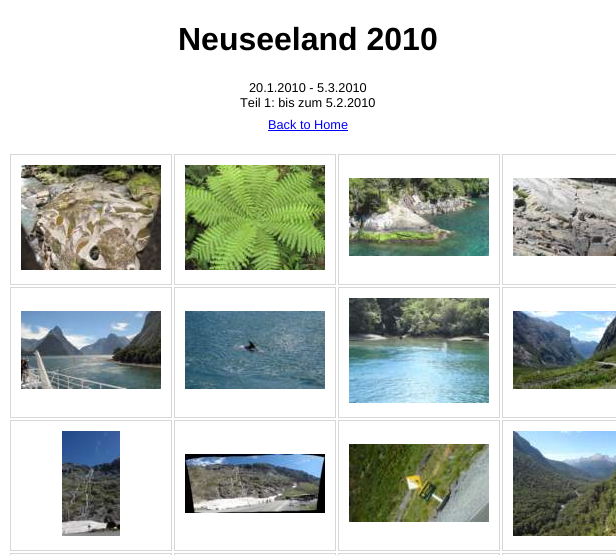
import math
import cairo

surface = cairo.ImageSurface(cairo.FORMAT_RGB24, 616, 555)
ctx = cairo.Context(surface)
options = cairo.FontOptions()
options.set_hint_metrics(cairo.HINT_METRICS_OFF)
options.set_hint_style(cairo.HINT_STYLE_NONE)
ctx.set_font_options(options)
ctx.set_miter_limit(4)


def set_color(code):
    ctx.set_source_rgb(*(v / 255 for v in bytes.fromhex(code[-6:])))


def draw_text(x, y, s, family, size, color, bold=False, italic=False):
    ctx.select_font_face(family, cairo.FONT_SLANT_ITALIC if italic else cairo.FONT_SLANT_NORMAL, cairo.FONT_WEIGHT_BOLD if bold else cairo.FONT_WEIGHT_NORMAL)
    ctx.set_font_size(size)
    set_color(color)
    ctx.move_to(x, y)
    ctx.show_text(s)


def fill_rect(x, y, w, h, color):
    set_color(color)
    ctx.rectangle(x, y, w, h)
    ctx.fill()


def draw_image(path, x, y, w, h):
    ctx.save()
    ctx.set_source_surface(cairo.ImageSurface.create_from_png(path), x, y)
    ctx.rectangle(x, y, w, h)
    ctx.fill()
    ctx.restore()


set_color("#ffffff")
ctx.paint()
draw_text(178, 50, "Neuseeland 2010", "Liberation Sans", 32, "#000000", bold=True)
draw_text(249, 92, "20.1.2010 - 5.3.2010", "Liberation Sans", 12.75, "#000000")
draw_text(240, 107, "Teil 1: bis zum 5.2.2010", "Liberation Sans", 12.75, "#000000")
draw_text(268, 129, "Back to Home", "Liberation Sans", 12.75, "#0000ff")
fill_rect(268, 130, 80, 1, "#0000ff")
ctx.rectangle(10.5, 154.5, 161, 130)
set_color("#d7d7d7")
ctx.set_line_width(1)
ctx.stroke()
draw_image("assets/img1.png", 21, 165, 140, 105)
ctx.rectangle(174.5, 154.5, 161, 130)
ctx.stroke()
draw_image("assets/img2.png", 185, 165, 140, 105)
ctx.rectangle(338.5, 154.5, 161, 130)
ctx.stroke()
draw_image("assets/img3.png", 349, 178, 140, 78)
ctx.rectangle(502.5, 154.5, 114, 130)
ctx.stroke()
draw_image("assets/img4.png", 513, 178, 103, 78)
ctx.rectangle(10.5, 287.5, 161, 130)
ctx.stroke()
draw_image("assets/img5.png", 21, 311, 140, 78)
ctx.rectangle(174.5, 287.5, 161, 130)
ctx.stroke()
draw_image("assets/img6.png", 185, 311, 140, 78)
ctx.rectangle(338.5, 287.5, 161, 130)
ctx.stroke()
draw_image("assets/img7.png", 349, 298, 140, 105)
ctx.rectangle(502.5, 287.5, 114, 130)
ctx.stroke()
draw_image("assets/img8.png", 513, 311, 103, 78)
ctx.rectangle(10.5, 420.5, 161, 130)
ctx.stroke()
draw_image("assets/img9.png", 62, 431, 58, 105)
ctx.rectangle(174.5, 420.5, 161, 130)
ctx.stroke()
draw_image("assets/img10.png", 185, 454, 140, 59)
ctx.rectangle(338.5, 420.5, 161, 130)
ctx.stroke()
draw_image("assets/img11.png", 349, 444, 140, 78)
ctx.rectangle(502.5, 420.5, 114, 130)
ctx.stroke()
draw_image("assets/img12.png", 513, 431, 103, 105)
ctx.rectangle(10.5, 553.5, 161, 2)
ctx.stroke()
ctx.rectangle(174.5, 553.5, 161, 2)
ctx.stroke()
ctx.rectangle(338.5, 553.5, 161, 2)
ctx.stroke()
ctx.rectangle(502.5, 553.5, 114, 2)
ctx.stroke()
surface.write_to_png("output.png")
